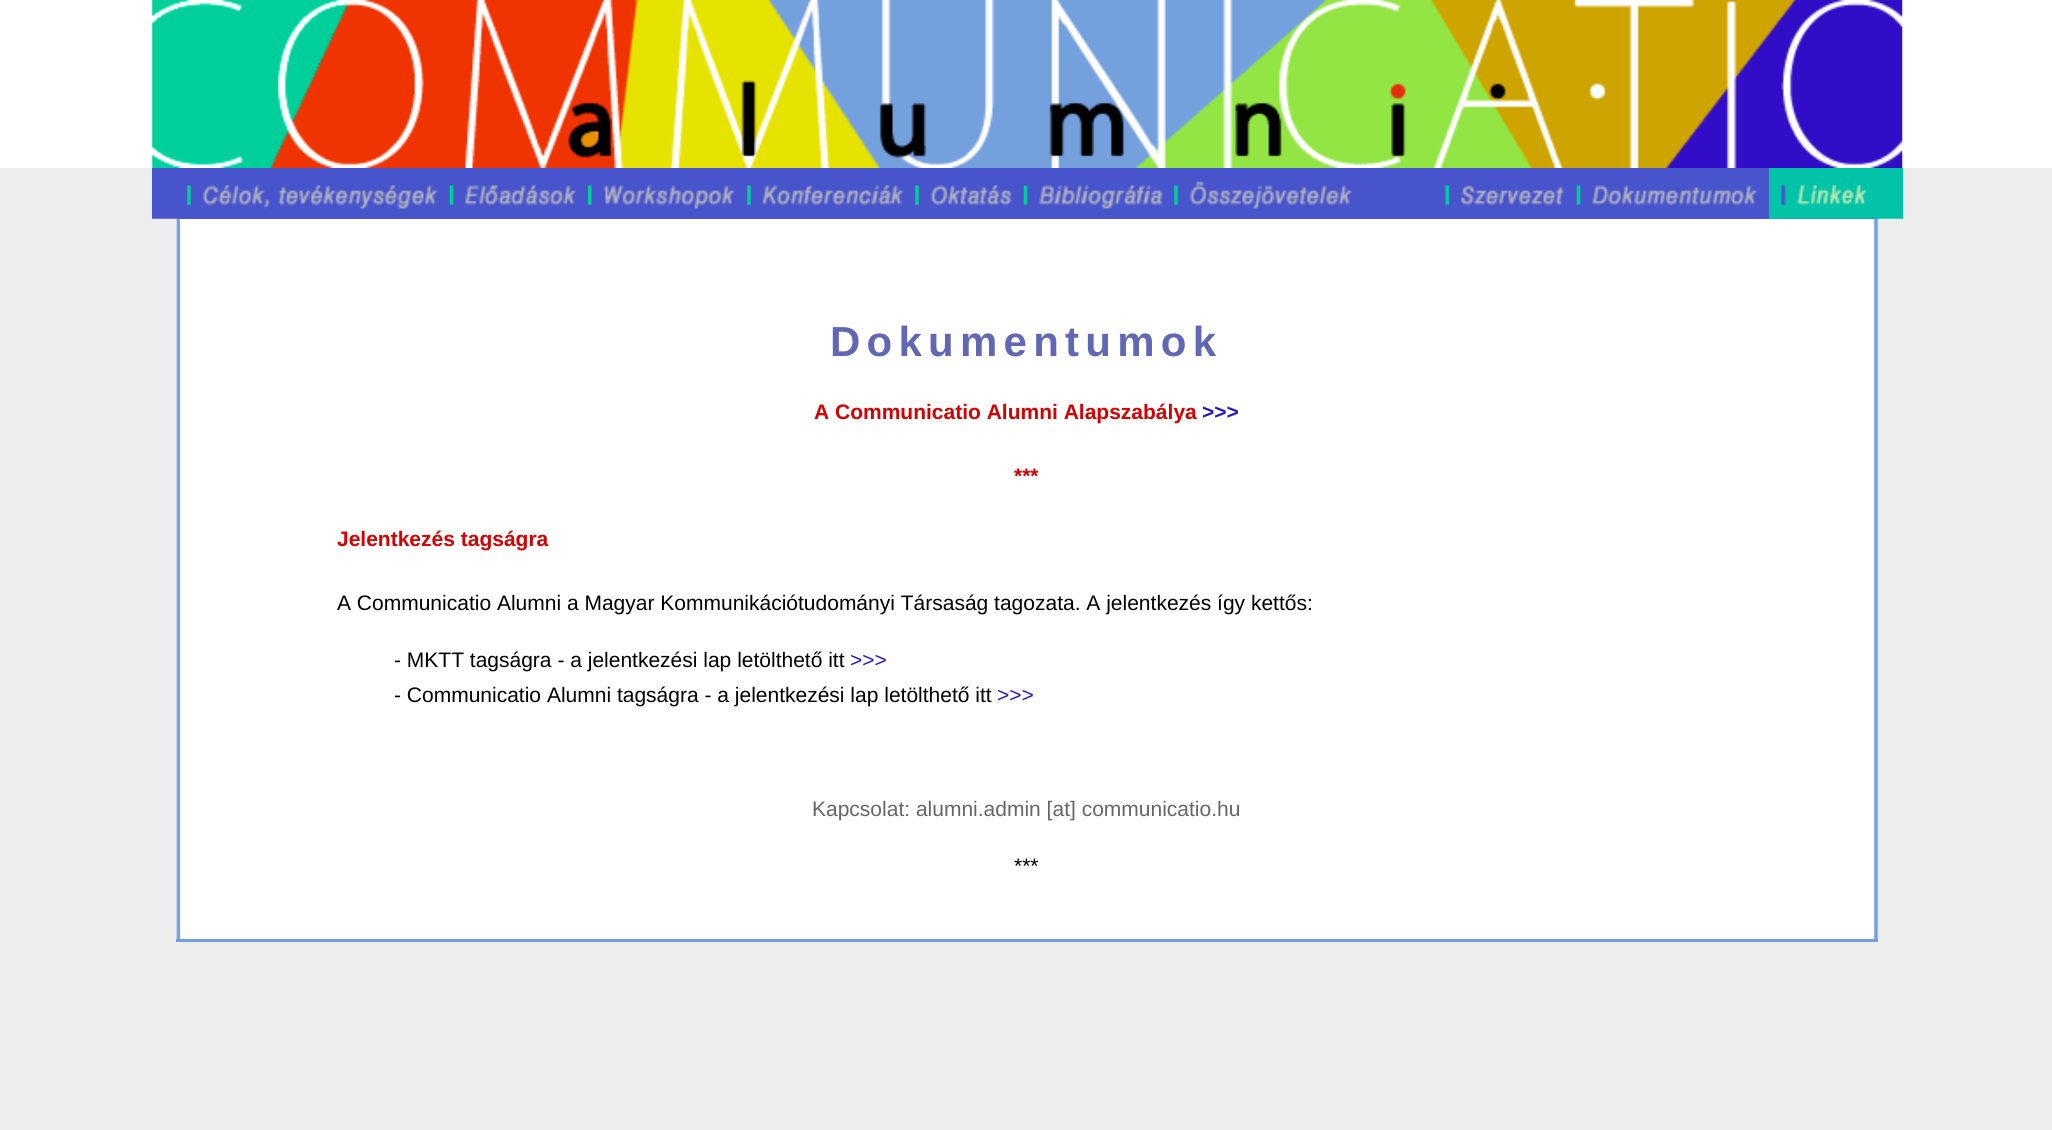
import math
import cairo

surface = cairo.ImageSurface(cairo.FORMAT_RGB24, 2052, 1130)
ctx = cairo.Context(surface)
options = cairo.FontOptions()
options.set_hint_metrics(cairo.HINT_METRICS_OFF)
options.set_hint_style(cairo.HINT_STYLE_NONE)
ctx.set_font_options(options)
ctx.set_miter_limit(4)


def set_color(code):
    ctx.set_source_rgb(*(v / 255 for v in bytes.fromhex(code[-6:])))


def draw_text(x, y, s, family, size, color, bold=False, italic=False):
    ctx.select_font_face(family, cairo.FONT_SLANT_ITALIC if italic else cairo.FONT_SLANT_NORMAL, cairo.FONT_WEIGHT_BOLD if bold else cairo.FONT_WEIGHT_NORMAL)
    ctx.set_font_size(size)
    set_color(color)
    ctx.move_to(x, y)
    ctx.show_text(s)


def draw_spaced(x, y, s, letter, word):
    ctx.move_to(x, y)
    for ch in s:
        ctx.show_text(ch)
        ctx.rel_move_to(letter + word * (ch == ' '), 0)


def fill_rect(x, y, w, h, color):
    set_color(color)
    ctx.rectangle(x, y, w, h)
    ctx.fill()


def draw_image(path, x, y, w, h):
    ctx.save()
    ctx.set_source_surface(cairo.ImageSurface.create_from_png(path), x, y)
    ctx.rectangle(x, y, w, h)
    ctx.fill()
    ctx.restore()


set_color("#ededed")
ctx.paint()
fill_rect(0, 0, 2052, 168, "#ffffff")
draw_image("assets/img1.png", 152, 0, 1751, 168)
fill_rect(152, 168, 1725, 51, "#4854cc")
draw_image("assets/img2.png", 187, 185, 251, 24)
draw_image("assets/img3.png", 449, 185, 128, 21)
draw_image("assets/img4.png", 588, 185, 147, 24)
draw_image("assets/img5.png", 747, 185, 157, 21)
draw_image("assets/img6.png", 915, 185, 97, 21)
draw_image("assets/img7.png", 1023, 185, 140, 24)
draw_image("assets/img8.png", 1174, 181, 178, 28)
draw_image("assets/img9.png", 1445, 185, 120, 21)
draw_image("assets/img10.png", 1576, 185, 182, 21)
fill_rect(1769, 168, 13, 51, "#00c3a7")
fill_rect(1877, 168, 26, 51, "#00c3a7")
draw_image("assets/img13.png", 1874, 218, 29, 722)
draw_image("assets/img11.png", 1781, 168, 97, 51)
draw_image("assets/img12.png", 152, 218, 29, 722)
fill_rect(180, 219, 1694, 720, "#ffffff")
ctx.select_font_face("Liberation Sans", cairo.FONT_SLANT_NORMAL, cairo.FONT_WEIGHT_BOLD)
ctx.set_font_size(42)
set_color("#6167b4")
draw_spaced(830, 356, "Dokumentumok", 6.25, 0)
draw_text(814, 419, "A Communicatio Alumni Alapszabálya", "Liberation Sans", 21, "#d50000", bold=True)
draw_text(1202, 419, ">>>", "Liberation Sans", 21, "#2e15c2", bold=True)
draw_text(1014, 483, "***", "Liberation Sans", 21, "#d50000", bold=True)
draw_text(337, 546, "Jelentkezés tagságra", "Liberation Sans", 21, "#d50000", bold=True)
draw_text(337, 610, "A Communicatio Alumni a Magyar Kommunikációtudományi Társaság tagozata. A jelentkezés így kettős:", "Liberation Sans", 21, "#000000")
draw_text(394, 667, "- MKTT tagságra - a jelentkezési lap letölthető itt", "Liberation Sans", 21, "#000000")
draw_text(850, 667, ">>>", "Liberation Sans", 21, "#2e15c2")
draw_text(394, 702, "- Communicatio Alumni tagságra - a jelentkezési lap letölthető itt", "Liberation Sans", 21, "#000000")
draw_text(997, 702, ">>>", "Liberation Sans", 21, "#2e15c2")
draw_text(812, 816, "Kapcsolat: alumni.admin [at] communicatio.hu", "Liberation Sans", 21, "#666666")
draw_text(1014, 873, "***", "Liberation Sans", 21, "#000000")
fill_rect(176, 939, 1702, 3, "#75a0de")
surface.write_to_png("output.png")
